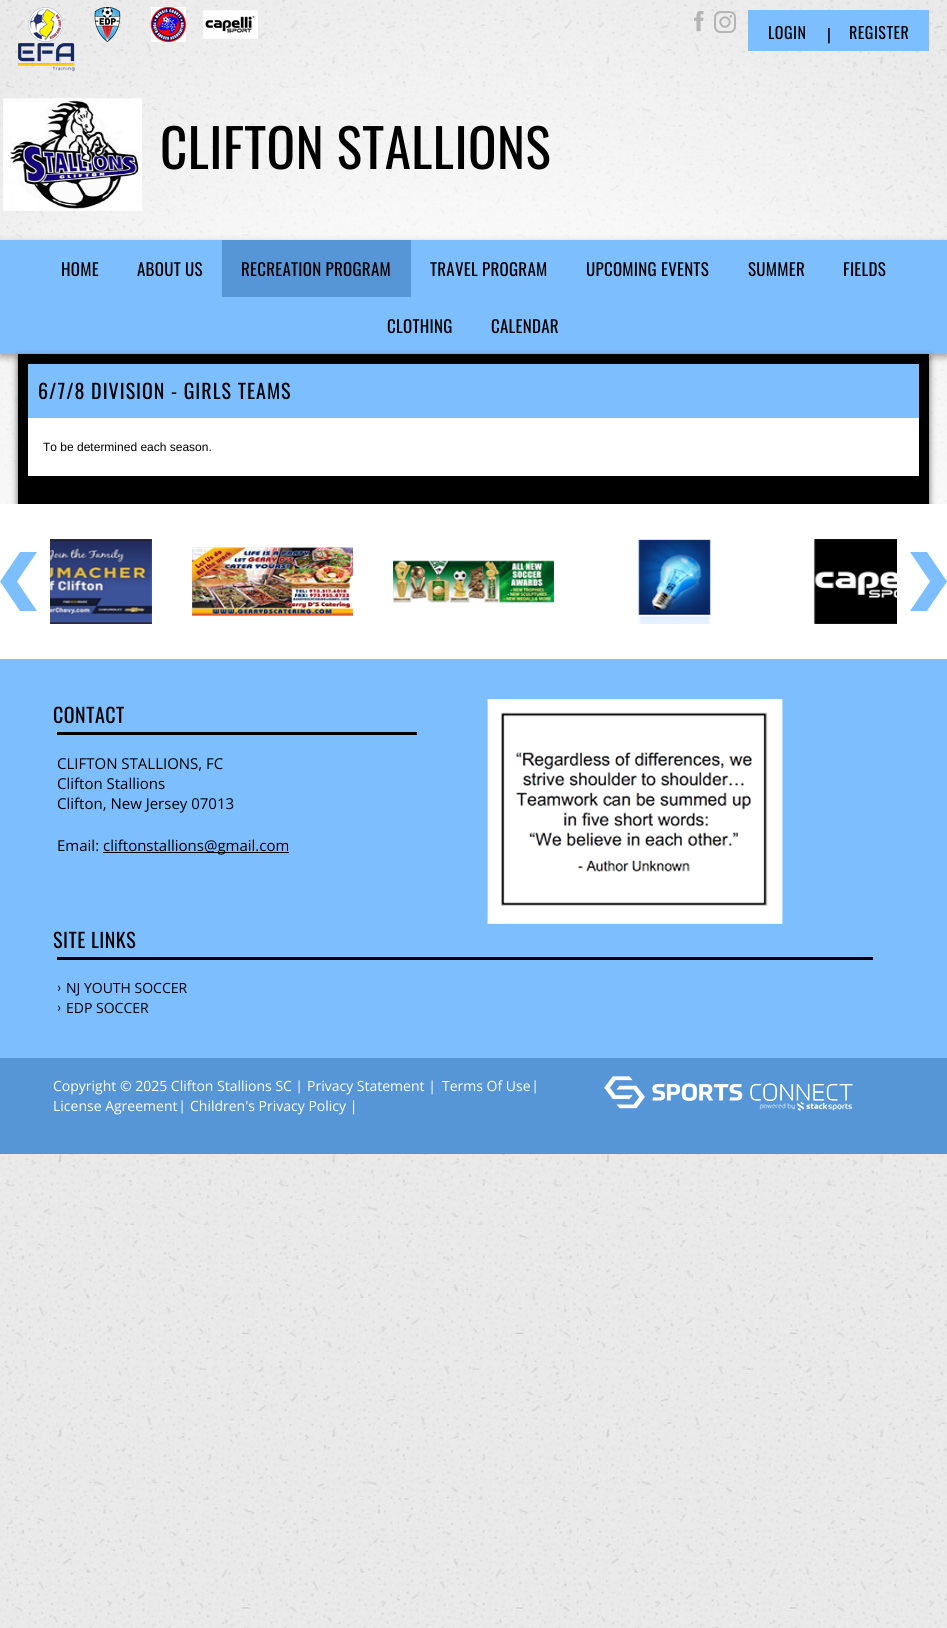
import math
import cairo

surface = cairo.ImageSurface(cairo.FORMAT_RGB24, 947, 1628)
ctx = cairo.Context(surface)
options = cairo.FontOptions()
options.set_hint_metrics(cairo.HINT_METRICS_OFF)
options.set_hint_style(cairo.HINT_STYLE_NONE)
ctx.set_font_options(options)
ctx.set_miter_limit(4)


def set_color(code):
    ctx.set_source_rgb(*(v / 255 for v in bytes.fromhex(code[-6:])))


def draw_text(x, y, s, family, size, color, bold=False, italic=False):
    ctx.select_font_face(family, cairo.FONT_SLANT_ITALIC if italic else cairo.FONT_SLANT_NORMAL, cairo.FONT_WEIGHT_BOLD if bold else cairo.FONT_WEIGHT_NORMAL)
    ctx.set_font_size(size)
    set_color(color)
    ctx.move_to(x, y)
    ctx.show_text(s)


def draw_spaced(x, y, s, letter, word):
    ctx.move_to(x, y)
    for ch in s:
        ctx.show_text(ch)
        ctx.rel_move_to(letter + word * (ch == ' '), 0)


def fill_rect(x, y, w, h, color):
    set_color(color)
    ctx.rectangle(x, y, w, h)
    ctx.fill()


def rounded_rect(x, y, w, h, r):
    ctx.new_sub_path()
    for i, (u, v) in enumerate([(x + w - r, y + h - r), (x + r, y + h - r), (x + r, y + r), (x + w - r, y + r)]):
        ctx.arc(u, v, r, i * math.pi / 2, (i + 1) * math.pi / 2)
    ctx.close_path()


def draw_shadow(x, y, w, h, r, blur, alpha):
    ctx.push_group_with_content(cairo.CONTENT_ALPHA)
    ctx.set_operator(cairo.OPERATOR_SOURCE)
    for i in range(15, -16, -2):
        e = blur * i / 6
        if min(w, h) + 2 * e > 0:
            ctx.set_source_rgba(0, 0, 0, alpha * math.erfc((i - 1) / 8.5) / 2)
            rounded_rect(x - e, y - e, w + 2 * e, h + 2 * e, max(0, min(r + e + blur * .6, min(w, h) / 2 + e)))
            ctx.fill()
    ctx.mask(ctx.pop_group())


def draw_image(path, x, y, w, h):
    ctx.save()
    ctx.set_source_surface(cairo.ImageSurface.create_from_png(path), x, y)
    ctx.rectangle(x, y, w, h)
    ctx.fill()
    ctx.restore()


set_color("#ffffff")
ctx.paint()
draw_image("assets/img1.png", 0, 0, 947, 1628)
draw_image("assets/img2.png", 0, 0, 947, 504)
draw_image("assets/img3.png", 28, 7, 35, 35)
draw_image("assets/img4.png", 94, 7, 27, 35)
draw_image("assets/img5.png", 150, 7, 36, 35)
draw_image("assets/img6.png", 203, 10, 55, 29)
draw_image("assets/img7.png", 18, 43, 57, 29)
draw_image("assets/img8.png", 694, 11, 10, 21)
draw_image("assets/img9.png", 714, 11, 22, 22)
fill_rect(748, 10, 181, 41, "#7dbeff")
ctx.select_font_face("Oswald")
ctx.set_font_size(16)
set_color("#000000")
draw_spaced(768, 39, "LOGIN", 0.5, 0)
draw_spaced(827, 41, "|", 0.5, 0)
draw_spaced(849, 39, "REGISTER", 0.5, 0)
draw_image("assets/img10.png", 3, 98, 139, 113)
ctx.set_font_size(53)
draw_spaced(160, 169, "CLIFTON STALLIONS", 0.5, 0)
set_color("#000000")
draw_shadow(0, 243, 947, 114, 0, 3.5, 0.35)
fill_rect(0, 240, 947, 114, "#7dbeff")
ctx.set_font_size(17)
set_color("#000000")
draw_spaced(61, 276, "HOME", 0.25, 0)
draw_spaced(137, 276, "ABOUT US", 0.25, 0)
fill_rect(222, 240, 189, 57, "#5696d6")
set_color("#000000")
draw_spaced(241, 276, "RECREATION PROGRAM", 0.25, 0)
draw_spaced(430, 276, "TRAVEL PROGRAM", 0.25, 0)
draw_spaced(586, 276, "UPCOMING EVENTS", 0.25, 0)
draw_spaced(748, 276, "SUMMER", 0.25, 0)
draw_spaced(843, 276, "FIELDS", 0.25, 0)
draw_spaced(387, 333, "CLOTHING", 0.25, 0)
draw_spaced(491, 333, "CALENDAR", 0.25, 0)
set_color("#000000")
draw_shadow(18, 357, 911, 150, 0, 3.5, 0.61)
fill_rect(18, 354, 911, 150, "#000000")
fill_rect(28, 364, 891, 54, "#7dbeff")
ctx.set_font_size(20)
set_color("#000000")
draw_spaced(38, 399, "6/7/8 DIVISION - GIRLS TEAMS", 1, 0)
fill_rect(28, 418, 891, 58, "#ffffff")
draw_text(43, 451, "To be determined each season.", "Liberation Sans", 12, "#000000")
fill_rect(0, 504, 947, 155, "#ffffff")
draw_image("assets/img11.png", 0, 552, 37, 59)
draw_image("assets/img12.png", 50, 539, 102, 85)
draw_image("assets/img13.png", 192, 547, 161, 69)
draw_image("assets/img14.png", 393, 560, 161, 43)
draw_image("assets/img15.png", 638, 539, 73, 85)
draw_image("assets/img16.png", 813, 539, 84, 85)
draw_image("assets/img17.png", 910, 552, 37, 59)
fill_rect(0, 659, 947, 399, "#7dbeff")
ctx.select_font_face("Oswald")
ctx.set_font_size(20)
set_color("#000000")
draw_spaced(53, 723, "CONTACT", 0.5, 0)
fill_rect(57, 732, 360, 3, "#000000")
draw_text(57, 769, "CLIFTON STALLIONS, FC", "Open Sans", 15, "#000000")
draw_text(57, 789, "Clifton Stallions", "Open Sans", 15, "#000000")
draw_text(57, 809, "Clifton, New Jersey 07013", "Open Sans", 15, "#000000")
draw_text(57, 851, "Email:", "Open Sans", 15, "#000000")
fill_rect(103, 852, 186, 1, "#000000")
draw_text(103, 851, "cliftonstallions@gmail.com", "Open Sans", 15, "#000000")
draw_image("assets/img18.png", 487, 699, 296, 225)
ctx.select_font_face("Oswald")
ctx.set_font_size(20)
draw_spaced(53, 948, "SITE LINKS", 0.5, 0)
fill_rect(57, 957, 816, 3, "#000000")
draw_text(57, 992, "›", "Lato", 14, "#000000")
draw_text(66, 993, "NJ YOUTH SOCCER", "Open Sans", 14, "#000000")
draw_text(57, 1012, "›", "Lato", 14, "#000000")
draw_text(66, 1013, "EDP SOCCER", "Open Sans", 14, "#000000")
fill_rect(0, 1058, 947, 96, "#5696d6")
draw_text(53, 1091, "Copyright © 2025 Clifton Stallions SC", "Open Sans", 14, "#ffffff")
draw_text(297, 1091, "|", "Lato", 14, "#ffffff")
draw_text(307, 1091, "Privacy Statement |", "Open Sans", 14, "#ffffff")
draw_text(442, 1091, "Terms Of Use", "Open Sans", 14, "#ffffff")
draw_text(533, 1091, "|", "Lato", 14, "#ffffff")
draw_text(53, 1111, "License Agreement", "Open Sans", 14, "#ffffff")
draw_text(180, 1111, "|", "Lato", 14, "#ffffff")
draw_text(190, 1111, "Children's Privacy Policy |", "Open Sans", 14, "#ffffff")
draw_image("assets/img19.png", 604, 1076, 249, 35)
surface.write_to_png("output.png")
